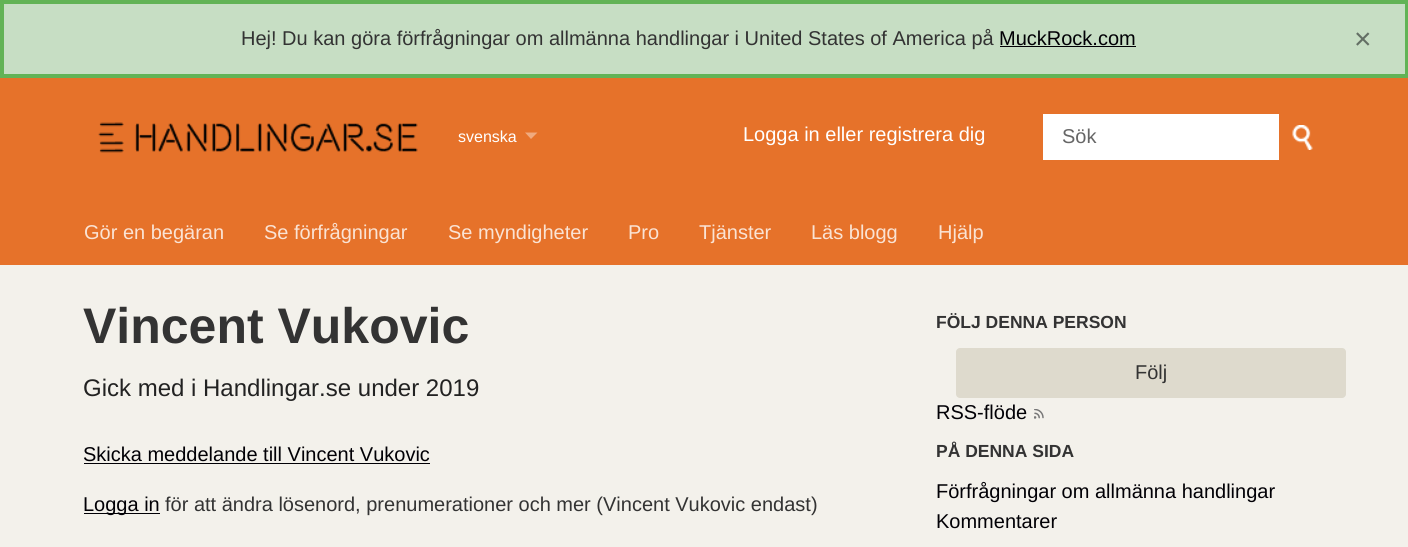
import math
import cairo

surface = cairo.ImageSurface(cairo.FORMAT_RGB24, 1408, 547)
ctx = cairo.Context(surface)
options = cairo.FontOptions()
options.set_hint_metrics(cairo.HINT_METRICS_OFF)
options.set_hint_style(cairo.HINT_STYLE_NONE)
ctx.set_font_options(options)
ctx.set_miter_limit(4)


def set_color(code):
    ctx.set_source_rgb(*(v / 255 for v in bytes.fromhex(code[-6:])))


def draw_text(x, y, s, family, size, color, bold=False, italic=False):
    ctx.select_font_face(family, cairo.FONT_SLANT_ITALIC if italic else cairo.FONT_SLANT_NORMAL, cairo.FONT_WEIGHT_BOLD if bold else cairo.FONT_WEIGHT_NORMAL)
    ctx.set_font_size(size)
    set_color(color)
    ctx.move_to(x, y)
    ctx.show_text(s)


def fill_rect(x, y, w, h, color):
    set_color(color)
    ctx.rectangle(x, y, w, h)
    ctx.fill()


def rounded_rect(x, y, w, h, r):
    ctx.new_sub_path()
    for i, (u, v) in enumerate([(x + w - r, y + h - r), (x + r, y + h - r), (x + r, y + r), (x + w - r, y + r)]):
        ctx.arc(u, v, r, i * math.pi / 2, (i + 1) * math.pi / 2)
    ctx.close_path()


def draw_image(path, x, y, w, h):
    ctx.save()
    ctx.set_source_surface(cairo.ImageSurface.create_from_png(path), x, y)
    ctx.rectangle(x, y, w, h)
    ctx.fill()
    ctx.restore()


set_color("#f3f1eb")
ctx.paint()
set_color("#c7dec4")
ctx.rectangle(2, 2, 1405, 74)
ctx.fill_preserve()
set_color("#62b356")
ctx.set_line_width(4)
ctx.stroke()
draw_text(241, 45, "Hej! Du kan göra förfrågningar om allmänna handlingar i United States of America på", "Liberation Sans", 20, "#333333")
draw_text(999, 45, "MuckRock.com", "Liberation Sans", 20, "#010005")
fill_rect(1000, 46, 136, 1, "#010005")
draw_text(1354, 49, "×", "Liberation Sans", 30, "#646f65")
fill_rect(0, 78, 1408, 187, "#e6722a")
draw_image("assets/img1.png", 98, 122, 320, 31)
draw_text(458, 142, "svenska", "Liberation Sans", 16, "#ffffff")
set_color("#f0aa7f")
ctx.new_path()
ctx.move_to(525, 132.5)
ctx.line_to(537.5, 132.5)
ctx.line_to(531, 139)
ctx.close_path()
ctx.fill()
draw_text(743, 141, "Logga in eller registrera dig", "Liberation Sans", 20, "#ffffff")
fill_rect(1043, 114, 236, 46, "#ffffff")
draw_text(1062, 143, "Sök", "Liberation Sans", 20, "#666666")
draw_image("assets/img2.png", 1292, 125, 21, 25)
draw_text(84, 239, "Gör en begäran", "Liberation Sans", 20, "#fae3d4")
draw_text(264, 239, "Se förfrågningar", "Liberation Sans", 20, "#fae3d4")
draw_text(448, 239, "Se myndigheter", "Liberation Sans", 20, "#fae3d4")
draw_text(628, 239, "Pro", "Liberation Sans", 20, "#fae3d4")
draw_text(699, 239, "Tjänster", "Liberation Sans", 20, "#fae3d4")
draw_text(811, 239, "Läs blogg", "Liberation Sans", 20, "#fae3d4")
draw_text(938, 239, "Hjälp", "Liberation Sans", 20, "#fae3d4")
draw_text(83, 343, "Vincent Vukovic", "Liberation Sans", 50, "#333333", bold=True)
draw_text(83, 396, "Gick med i Handlingar.se under 2019", "Liberation Sans", 24, "#222222")
draw_text(83, 461, "Skicka meddelande till Vincent Vukovic", "Liberation Sans", 20, "#010005")
fill_rect(84, 463, 346, 1, "#010005")
fill_rect(84, 513, 76, 1, "#010005")
draw_text(83, 511, "Logga in", "Liberation Sans", 20, "#010005")
draw_text(165, 511, "för att ändra lösenord, prenumerationer och mer (Vincent Vukovic endast)", "Liberation Sans", 20, "#333333")
draw_text(936, 328, "FÖLJ DENNA PERSON", "Liberation Sans", 17.5, "#333333", bold=True)
set_color("#dedacd")
rounded_rect(956, 348, 390, 50, 4)
ctx.fill()
draw_text(1135, 379, "Följ", "Liberation Sans", 20, "#333333")
draw_text(936, 419, "RSS-flöde", "Liberation Sans", 20, "#010005")
draw_image("assets/img3.png", 1034, 409, 10, 10)
draw_text(936, 457, "PÅ DENNA SIDA", "Liberation Sans", 17.5, "#333333", bold=True)
draw_text(936, 498, "Förfrågningar om allmänna handlingar", "Liberation Sans", 20, "#010005")
draw_text(936, 528, "Kommentarer", "Liberation Sans", 20, "#010005")
surface.write_to_png("output.png")
